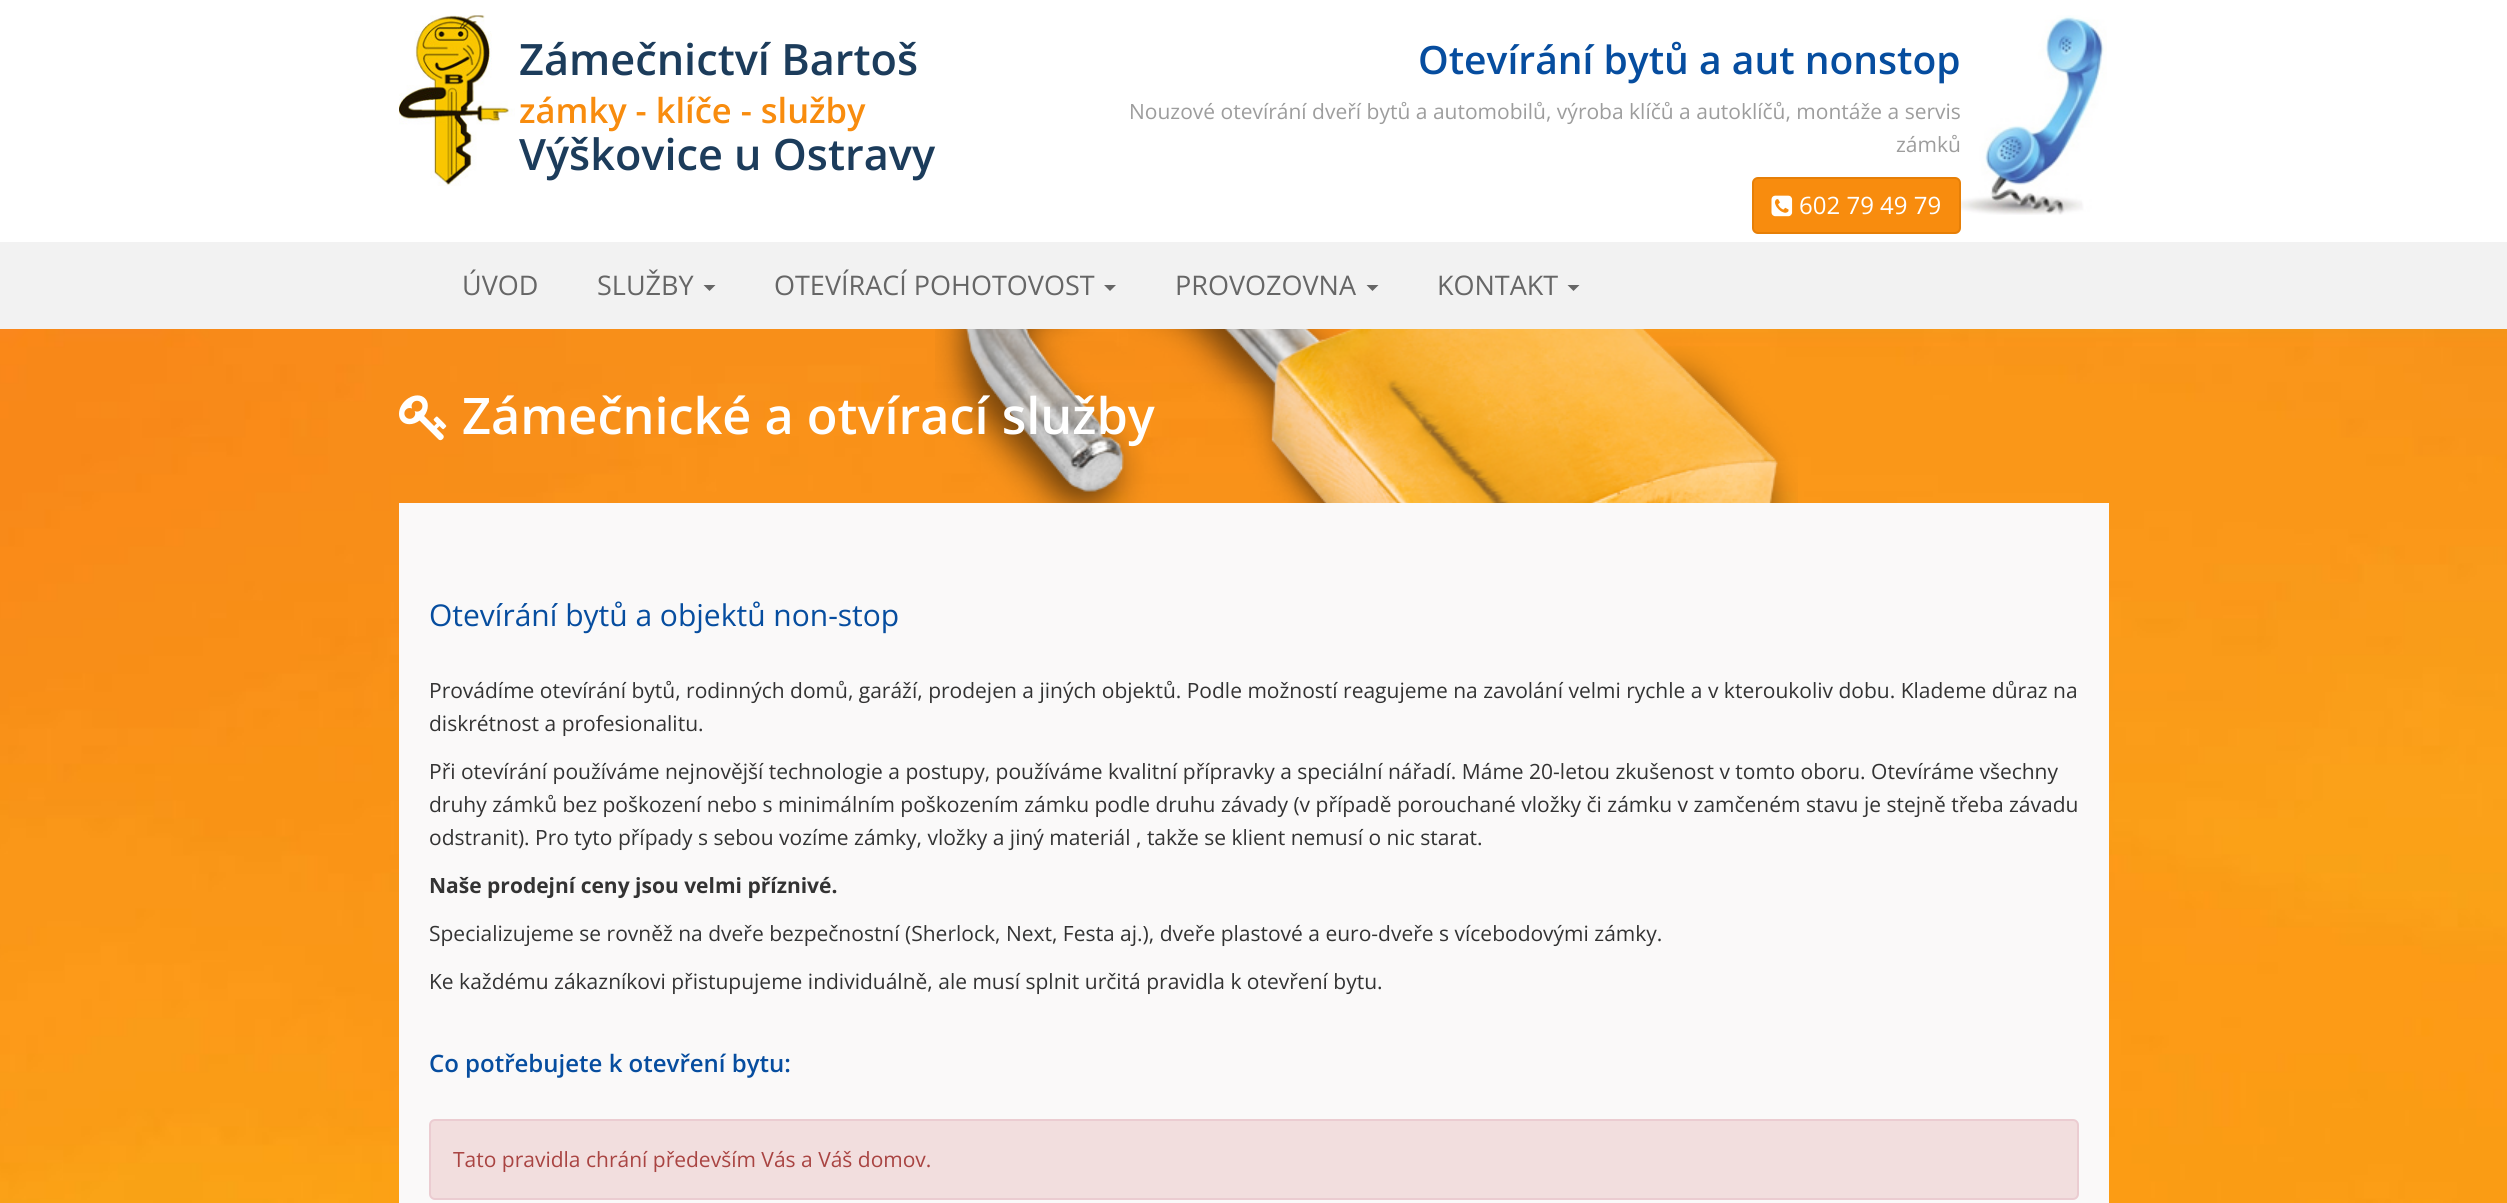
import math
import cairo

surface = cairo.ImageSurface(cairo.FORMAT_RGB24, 2507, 1203)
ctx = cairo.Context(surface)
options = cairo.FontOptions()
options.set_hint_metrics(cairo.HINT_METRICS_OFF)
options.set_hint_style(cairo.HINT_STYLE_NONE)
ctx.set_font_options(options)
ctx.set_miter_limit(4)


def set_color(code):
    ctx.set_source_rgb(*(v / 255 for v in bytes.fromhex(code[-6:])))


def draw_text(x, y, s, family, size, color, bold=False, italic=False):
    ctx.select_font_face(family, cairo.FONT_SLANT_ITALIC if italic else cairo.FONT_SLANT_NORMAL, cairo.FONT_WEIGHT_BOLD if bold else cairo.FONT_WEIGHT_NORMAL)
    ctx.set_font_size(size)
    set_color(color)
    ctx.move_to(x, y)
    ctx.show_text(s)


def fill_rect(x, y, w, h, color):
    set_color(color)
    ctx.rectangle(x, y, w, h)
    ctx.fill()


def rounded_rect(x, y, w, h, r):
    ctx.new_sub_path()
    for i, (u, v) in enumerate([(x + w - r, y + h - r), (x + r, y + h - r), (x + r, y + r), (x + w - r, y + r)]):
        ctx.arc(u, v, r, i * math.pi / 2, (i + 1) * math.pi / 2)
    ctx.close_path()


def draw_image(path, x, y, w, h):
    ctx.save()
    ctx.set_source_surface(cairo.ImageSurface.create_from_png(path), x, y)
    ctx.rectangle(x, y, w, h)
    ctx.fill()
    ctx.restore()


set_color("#ffffff")
ctx.paint()
draw_image("assets/img1.png", 399, 15, 116, 171)
draw_text(519, 75, "Zámečnictví Bartoš", "Open Sans SemiBold", 43.25, "#1c3c5b")
draw_text(519, 123, "zámky - klíče - služby", "Open Sans SemiBold", 34.5, "#f88c0e")
draw_text(519, 170, "Výškovice u Ostravy", "Open Sans SemiBold", 43.25, "#1c3c5b")
draw_text(1418, 74, "Otevírání bytů a aut nonstop", "Open Sans SemiBold", 39, "#064d9f")
draw_image("assets/img2.png", 1960, 15, 147, 200)
draw_text(1129, 119, "Nouzové otevírání dveří bytů a automobilů, výroba klíčů a autoklíčů, montáže a servis", "Open Sans", 21, "#9d9d9d")
draw_text(1896, 152, "zámků", "Open Sans", 21, "#9d9d9d")
set_color("#f88c0e")
rounded_rect(1753, 178, 207, 55, 5)
ctx.fill_preserve()
set_color("#e67f07")
ctx.stroke()
draw_image("assets/img3.png", 1771, 195, 22, 22)
draw_text(1799, 214, "602 79 49 79", "Open Sans", 24, "#ffffff")
fill_rect(0, 242, 2507, 87, "#f2f2f2")
draw_text(462, 295, "ÚVOD", "Open Sans", 27, "#666666")
draw_text(597, 295, "SLUŽBY", "Open Sans", 27, "#666666")
ctx.new_path()
ctx.move_to(703.5, 285)
ctx.line_to(715.5, 285)
ctx.line_to(709.5, 291)
ctx.close_path()
ctx.fill()
draw_text(774, 295, "OTEVÍRACÍ POHOTOVOST", "Open Sans", 27, "#666666")
ctx.new_path()
ctx.move_to(1104, 285)
ctx.line_to(1116, 285)
ctx.line_to(1110, 291)
ctx.close_path()
ctx.fill()
draw_text(1175, 295, "PROVOZOVNA", "Open Sans", 27, "#666666")
ctx.new_path()
ctx.move_to(1366.5, 285)
ctx.line_to(1378.5, 285)
ctx.line_to(1372.5, 291)
ctx.close_path()
ctx.fill()
draw_text(1437, 295, "KONTAKT", "Open Sans", 27, "#666666")
ctx.new_path()
ctx.move_to(1567.5, 285)
ctx.line_to(1579.5, 285)
ctx.line_to(1573.5, 291)
ctx.close_path()
ctx.fill()
draw_image("assets/img4.png", 0, 329, 2507, 874)
draw_image("assets/img5.png", 935, 329, 863, 174)
draw_image("assets/img6.png", 399, 395, 48, 46)
draw_text(462, 434, "Zámečnické a otvírací služby", "Open Sans SemiBold", 50.4, "#ffffff")
fill_rect(399, 503, 1710, 700, "#faf9f9")
draw_text(429, 626, "Otevírání bytů a objektů non-stop", "Open Sans", 30, "#064d9f")
draw_text(429, 698, "Provádíme otevírání bytů, rodinných domů, garáží, prodejen a jiných objektů. Podle možností reagujeme na zavolání velmi rychle a v kteroukoliv dobu. Klademe důraz na", "Open Sans", 21, "#333333")
draw_text(429, 731, "diskrétnost a profesionalitu.", "Open Sans", 21, "#333333")
draw_text(429, 779, "Při otevírání používáme nejnovější technologie a postupy, používáme kvalitní přípravky a speciální nářadí. Máme 20-letou zkušenost v tomto oboru. Otevíráme všechny", "Open Sans", 21, "#333333")
draw_text(429, 812, "druhy zámků bez poškození nebo s minimálním poškozením zámku podle druhu závady (v případě porouchané vložky či zámku v zamčeném stavu je stejně třeba závadu", "Open Sans", 21, "#333333")
draw_text(429, 845, "odstranit). Pro tyto případy s sebou vozíme zámky, vložky a jiný materiál , takže se klient nemusí o nic starat.", "Open Sans", 21, "#333333")
draw_text(429, 893, "Naše prodejní ceny jsou velmi příznivé.", "Open Sans", 21, "#333333", bold=True)
draw_text(429, 941, "Specializujeme se rovněž na dveře bezpečnostní (Sherlock, Next, Festa aj.), dveře plastové a euro-dveře s vícebodovými zámky.", "Open Sans", 21, "#333333")
draw_text(429, 989, "Ke každému zákazníkovi přistupujeme individuálně, ale musí splnit určitá pravidla k otevření bytu.", "Open Sans", 21, "#333333")
draw_text(429, 1072, "Co potřebujete k otevření bytu:", "Open Sans SemiBold", 24, "#064d9f")
set_color("#f2dede")
rounded_rect(430, 1120, 1648, 79, 5)
ctx.fill_preserve()
set_color("#ebccd1")
ctx.stroke()
draw_text(453, 1167, "Tato pravidla chrání především Vás a Váš domov.", "Open Sans", 21, "#a94442")
surface.write_to_png("output.png")
